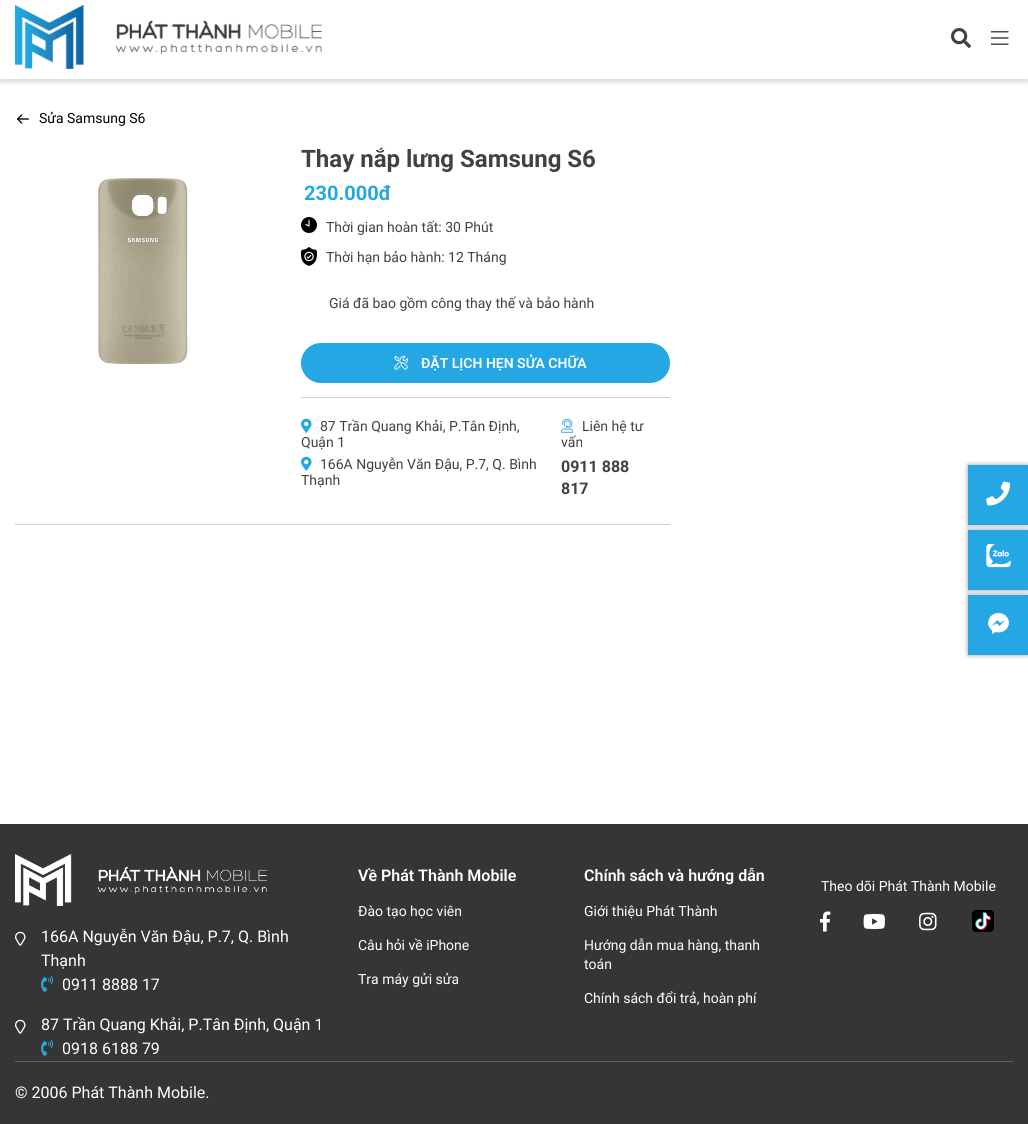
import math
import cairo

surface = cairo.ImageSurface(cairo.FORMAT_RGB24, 1028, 1124)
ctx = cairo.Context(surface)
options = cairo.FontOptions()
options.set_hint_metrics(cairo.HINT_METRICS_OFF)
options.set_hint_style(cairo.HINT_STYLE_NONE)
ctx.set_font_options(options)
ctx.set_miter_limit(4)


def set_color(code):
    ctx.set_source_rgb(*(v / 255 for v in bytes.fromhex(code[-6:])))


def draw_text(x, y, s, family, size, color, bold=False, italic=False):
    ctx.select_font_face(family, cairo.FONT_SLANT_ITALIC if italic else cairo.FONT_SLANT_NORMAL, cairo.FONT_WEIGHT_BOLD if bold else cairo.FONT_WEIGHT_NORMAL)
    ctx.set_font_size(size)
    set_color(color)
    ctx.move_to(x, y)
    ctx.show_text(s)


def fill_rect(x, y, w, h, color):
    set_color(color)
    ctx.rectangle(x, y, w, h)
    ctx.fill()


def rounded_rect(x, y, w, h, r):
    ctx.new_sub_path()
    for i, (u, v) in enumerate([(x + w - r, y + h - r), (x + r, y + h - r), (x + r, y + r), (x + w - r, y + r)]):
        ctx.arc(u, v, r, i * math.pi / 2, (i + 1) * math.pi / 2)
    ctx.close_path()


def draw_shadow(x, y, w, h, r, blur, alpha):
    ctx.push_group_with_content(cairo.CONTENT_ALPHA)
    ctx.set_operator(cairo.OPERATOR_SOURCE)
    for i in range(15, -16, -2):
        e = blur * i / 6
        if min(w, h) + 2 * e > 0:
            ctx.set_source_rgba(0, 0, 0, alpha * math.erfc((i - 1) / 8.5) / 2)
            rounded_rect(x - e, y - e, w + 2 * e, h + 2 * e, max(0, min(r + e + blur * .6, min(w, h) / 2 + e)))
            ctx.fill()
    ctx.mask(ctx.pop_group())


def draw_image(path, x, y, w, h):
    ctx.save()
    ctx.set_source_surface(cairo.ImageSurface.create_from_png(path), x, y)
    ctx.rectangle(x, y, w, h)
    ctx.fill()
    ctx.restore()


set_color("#ffffff")
ctx.paint()
ctx.save()
ctx.rectangle(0, 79, 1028, 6)
ctx.clip()
set_color("#000000")
draw_shadow(0, 3, 1028, 79, 0, 3, 0.16)
ctx.restore()
draw_image("assets/img1.png", 15, 5, 307, 64)
draw_image("assets/img2.png", 951, 28, 20, 20)
draw_image("assets/img3.png", 991, 31, 18, 14)
draw_image("assets/img4.png", 17, 114, 12, 10)
draw_text(39, 123, "Sửa Samsung S6", "Roboto", 14, "#000000")
draw_image("assets/img5.png", 97, 178, 91, 186)
draw_text(301, 167, "Thay nắp lưng Samsung S6", "Roboto", 24, "#414141", bold=True)
draw_text(304, 200, "230.000đ", "Roboto", 20, "#25a7e4", bold=True)
draw_image("assets/img6.png", 301, 217, 16, 16)
draw_text(326, 232, "Thời gian hoàn tất: 30 Phút", "Roboto", 14, "#414141")
draw_image("assets/img7.png", 301, 247, 16, 19)
draw_text(326, 262, "Thời hạn bảo hành: 12 Tháng", "Roboto", 14, "#414141")
draw_text(329, 308, "Giá đã bao gồm công thay thế và bảo hành", "Roboto", 14, "#414141")
fill_rect(301, 397, 369, 1, "#cdcdcd")
set_color("#25a7e4")
rounded_rect(301, 343, 369, 40, 20)
ctx.fill()
draw_image("assets/img8.png", 394, 355, 14, 15)
draw_text(421, 368, "ĐẶT LỊCH HẸN SỬA CHỮA", "Roboto SemiBold", 14, "#ffffff")
draw_image("assets/img9.png", 301, 418, 11, 15)
draw_text(320, 431, "87 Trần Quang Khải, P.Tân Định,", "Roboto", 14, "#414141")
draw_text(301, 447, "Quận 1", "Roboto", 14, "#414141")
draw_image("assets/img9.png", 301, 456, 11, 15)
draw_text(320, 469, "166A Nguyễn Văn Đậu, P.7, Q. Bình", "Roboto", 14, "#414141")
draw_text(301, 485, "Thạnh", "Roboto", 14, "#414141")
draw_image("assets/img10.png", 561, 418, 13, 15)
draw_text(582, 431, "Liên hệ tư", "Roboto", 14, "#414141")
draw_text(561, 447, "vấn", "Roboto", 14, "#414141")
draw_text(561, 472, "0911 888", "Roboto", 16, "#414141", bold=True)
draw_text(561, 494, "817", "Roboto", 16, "#414141", bold=True)
fill_rect(15, 524, 655, 1, "#cdcdcd")
set_color("#000000")
draw_shadow(968, 465, 60, 60, 0, 2.5, 0.4)
fill_rect(968, 465, 60, 60, "#25a7e4")
draw_image("assets/img11.png", 986, 481, 24, 25)
set_color("#000000")
draw_shadow(968, 530, 60, 60, 0, 2.5, 0.4)
fill_rect(968, 530, 60, 60, "#25a7e4")
draw_image("assets/img12.png", 986, 544, 25, 24)
set_color("#000000")
draw_shadow(968, 595, 60, 60, 0, 2.5, 0.4)
fill_rect(968, 595, 60, 60, "#25a7e4")
draw_image("assets/img13.png", 988, 613, 21, 21)
fill_rect(0, 824, 1028, 300, "#353535")
draw_text(358, 881, "Về Phát Thành Mobile", "Roboto SemiBold", 16, "#ffffff")
draw_text(358, 916, "Đào tạo học viên", "Roboto", 14, "#ffffff")
draw_text(358, 950, "Câu hỏi về iPhone", "Roboto", 14, "#ffffff")
draw_text(358, 984, "Tra máy gửi sửa", "Roboto", 14, "#ffffff")
draw_text(584, 881, "Chính sách và hướng dẫn", "Roboto SemiBold", 16, "#ffffff")
draw_text(584, 916, "Giới thiệu Phát Thành", "Roboto", 14, "#ffffff")
draw_text(584, 950, "Hướng dẫn mua hàng, thanh", "Roboto", 14, "#ffffff")
draw_text(584, 969, "toán", "Roboto", 14, "#ffffff")
draw_text(584, 1003, "Chính sách đổi trả, hoàn phí", "Roboto", 14, "#ffffff")
draw_text(821, 891, "Theo dõi Phát Thành Mobile", "Roboto", 14, "#ffffff")
draw_image("assets/img14.png", 820, 911, 11, 21)
draw_image("assets/img15.png", 863, 914, 22, 15)
draw_image("assets/img16.png", 919, 912, 18, 19)
draw_image("assets/img17.png", 972, 910, 22, 22)
draw_image("assets/img18.png", 15, 854, 252, 52)
draw_image("assets/img19.png", 15, 931, 11, 15)
draw_text(41, 942, "166A Nguyễn Văn Đậu, P.7, Q. Bình", "Roboto", 16, "#ffffff")
draw_text(41, 966, "Thạnh", "Roboto", 16, "#ffffff")
draw_image("assets/img20.png", 41, 976, 12, 16)
draw_text(62, 990, "0911 8888 17", "Roboto", 16, "#ffffff")
draw_image("assets/img19.png", 15, 1019, 11, 15)
draw_text(41, 1030, "87 Trần Quang Khải, P.Tân Định, Quận 1", "Roboto", 16, "#ffffff")
draw_image("assets/img20.png", 41, 1040, 12, 16)
draw_text(62, 1054, "0918 6188 79", "Roboto", 16, "#ffffff")
fill_rect(15, 1061, 998, 1, "#616161")
draw_text(15, 1098, "© 2006 Phát Thành Mobile.", "Roboto", 16, "#ffffff")
surface.write_to_png("output.png")
